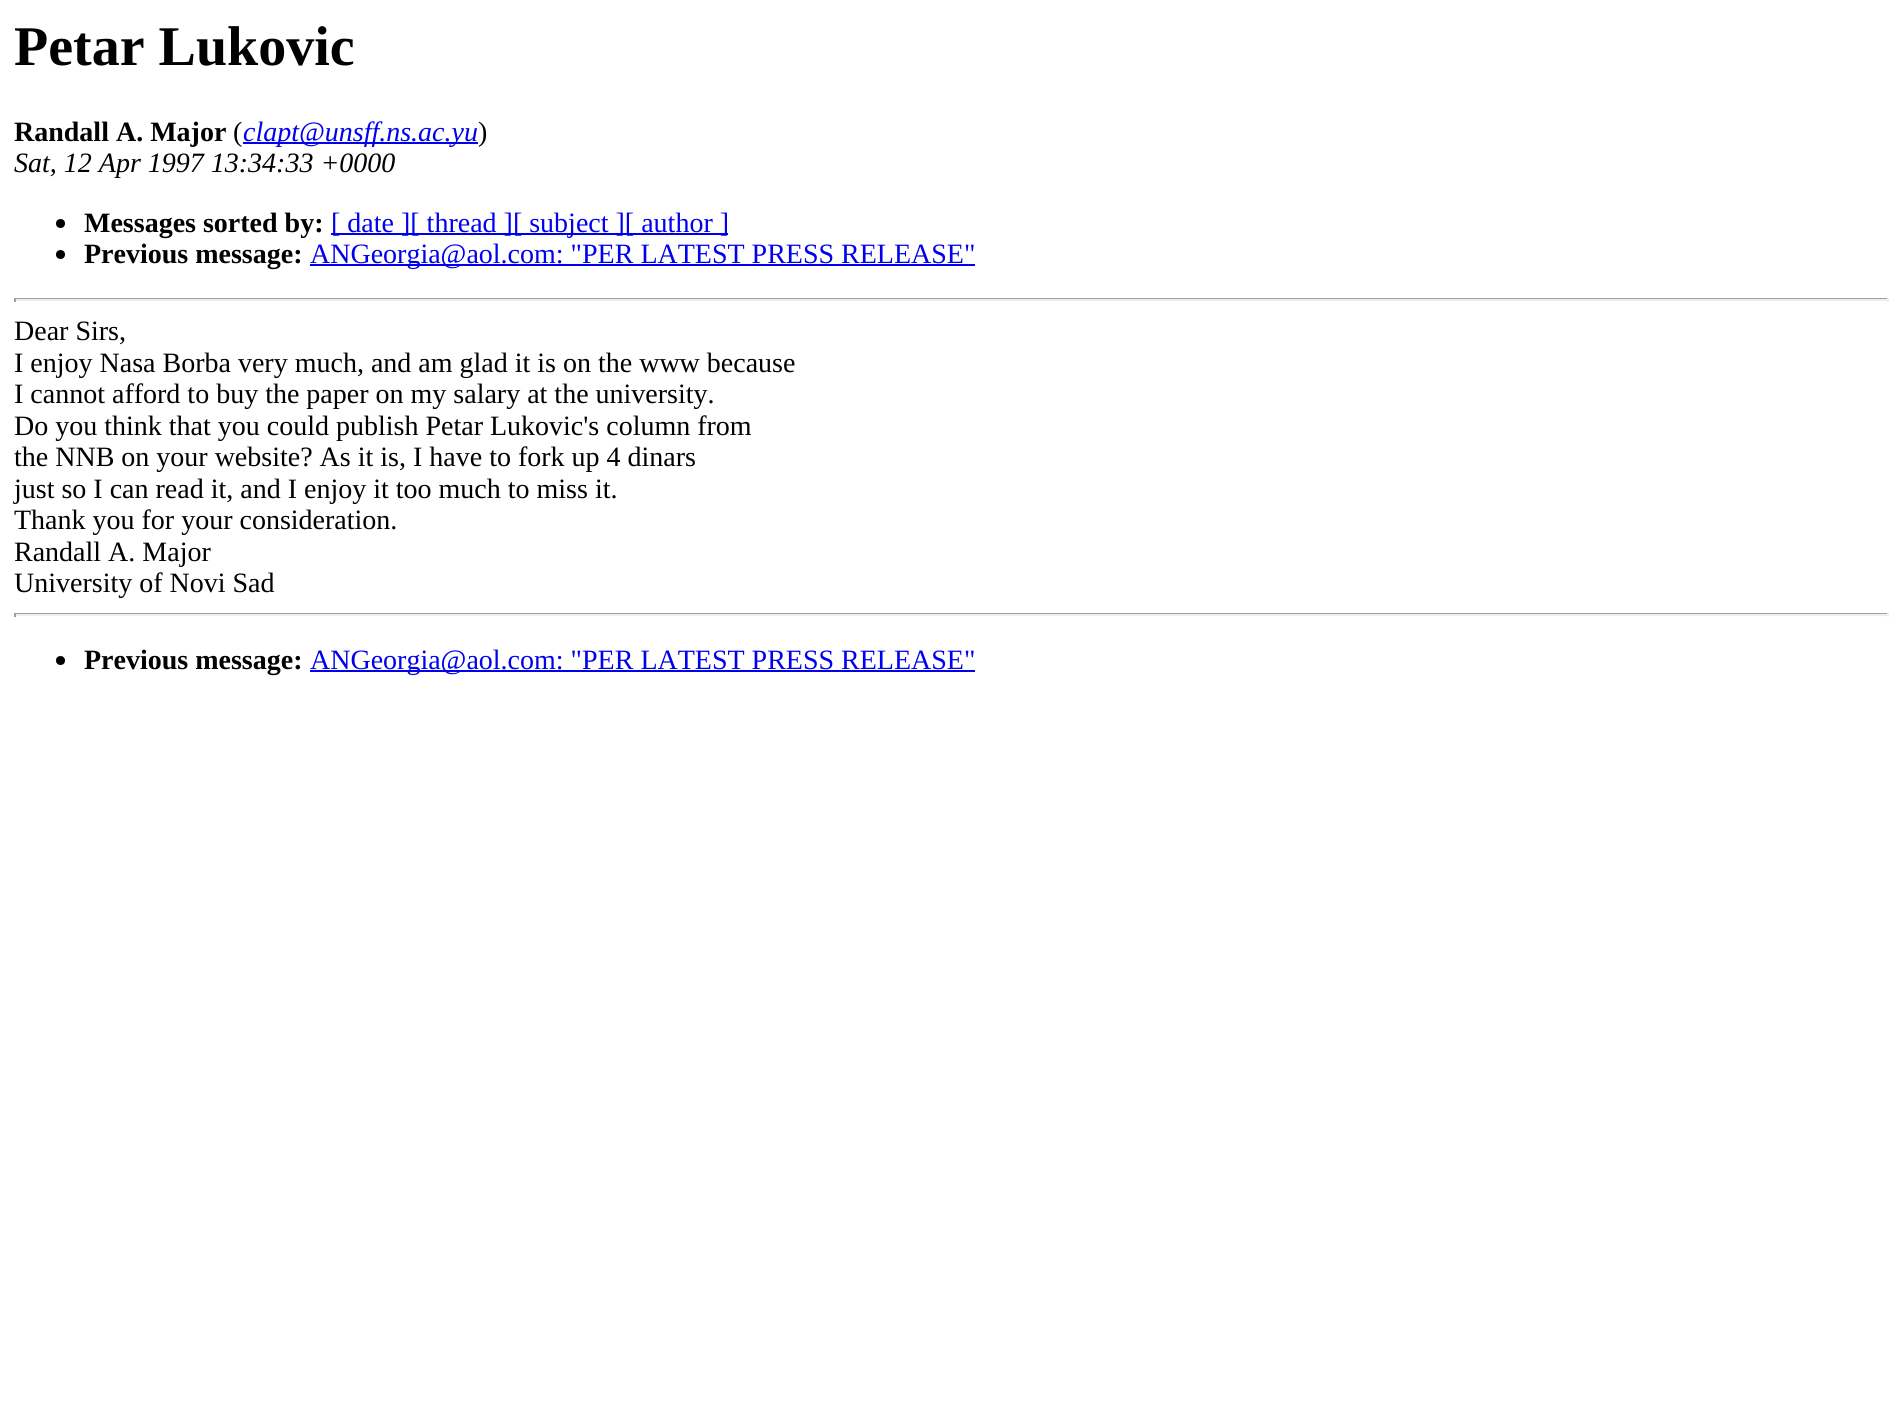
import math
import cairo

surface = cairo.ImageSurface(cairo.FORMAT_RGB24, 1901, 1423)
ctx = cairo.Context(surface)
options = cairo.FontOptions()
options.set_hint_metrics(cairo.HINT_METRICS_OFF)
options.set_hint_style(cairo.HINT_STYLE_NONE)
ctx.set_font_options(options)
ctx.set_miter_limit(4)


def set_color(code):
    ctx.set_source_rgb(*(v / 255 for v in bytes.fromhex(code[-6:])))


def draw_text(x, y, s, family, size, color, bold=False, italic=False):
    ctx.select_font_face(family, cairo.FONT_SLANT_ITALIC if italic else cairo.FONT_SLANT_NORMAL, cairo.FONT_WEIGHT_BOLD if bold else cairo.FONT_WEIGHT_NORMAL)
    ctx.set_font_size(size)
    set_color(color)
    ctx.move_to(x, y)
    ctx.show_text(s)


def fill_rect(x, y, w, h, color):
    set_color(color)
    ctx.rectangle(x, y, w, h)
    ctx.fill()


set_color("#ffffff")
ctx.paint()
draw_text(14, 65, "Petar Lukovic", "Liberation Serif", 56, "#000000", bold=True)
draw_text(14, 141, "Randall A. Major", "Liberation Serif", 28, "#000000", bold=True)
draw_text(233, 141, "(", "Liberation Serif", 28, "#000000")
fill_rect(243, 142, 235, 2, "#0000ee")
draw_text(243, 141, "clapt@unsff.ns.ac.yu", "Liberation Serif", 28, "#0000ee", italic=True)
draw_text(478, 141, ")", "Liberation Serif", 28, "#000000")
draw_text(14, 172, "Sat, 12 Apr 1997 13:34:33 +0000", "Liberation Serif", 28, "#000000", italic=True)
ctx.new_path()
ctx.arc(60.5, 223.5, 4.5, 0, 2 * math.pi)
ctx.fill()
draw_text(84, 232, "Messages sorted by:", "Liberation Serif", 28, "#000000", bold=True)
fill_rect(331, 233, 397, 2, "#0000ee")
draw_text(331, 232, "[ date ][ thread ][ subject ][ author ]", "Liberation Serif", 28, "#0000ee")
set_color("#000000")
ctx.new_path()
ctx.arc(60.5, 254.5, 4.5, 0, 2 * math.pi)
ctx.fill()
draw_text(84, 263, "Previous message:", "Liberation Serif", 28, "#000000", bold=True)
fill_rect(310, 264, 665, 2, "#0000ee")
draw_text(310, 263, "ANGeorgia@aol.com: \"PER LATEST PRESS RELEASE\"", "Liberation Serif", 28, "#0000ee")
fill_rect(14, 298, 1874, 1, "#9f9f9f")
fill_rect(1887, 298, 2, 4, "#eeeeee")
fill_rect(14, 299, 1874, 2, "#eeeeee")
fill_rect(14, 298, 2, 4, "#9f9f9f")
draw_text(14, 340, "Dear Sirs,", "Liberation Serif", 28, "#000000")
draw_text(14, 372, "I enjoy Nasa Borba very much, and am glad it is on the www because", "Liberation Serif", 28, "#000000")
draw_text(14, 403, "I cannot afford to buy the paper on my salary at the university.", "Liberation Serif", 28, "#000000")
draw_text(14, 435, "Do you think that you could publish Petar Lukovic's column from", "Liberation Serif", 28, "#000000")
draw_text(14, 466, "the NNB on your website? As it is, I have to fork up 4 dinars", "Liberation Serif", 28, "#000000")
draw_text(14, 498, "just so I can read it, and I enjoy it too much to miss it.", "Liberation Serif", 28, "#000000")
draw_text(14, 529, "Thank you for your consideration.", "Liberation Serif", 28, "#000000")
draw_text(14, 561, "Randall A. Major", "Liberation Serif", 28, "#000000")
draw_text(14, 592, "University of Novi Sad", "Liberation Serif", 28, "#000000")
fill_rect(14, 613, 1874, 1, "#9f9f9f")
fill_rect(1887, 613, 2, 4, "#eeeeee")
fill_rect(14, 614, 1874, 2, "#eeeeee")
fill_rect(14, 613, 2, 4, "#9f9f9f")
set_color("#000000")
ctx.new_path()
ctx.arc(60.5, 660.5, 4.5, 0, 2 * math.pi)
ctx.fill()
draw_text(84, 669, "Previous message:", "Liberation Serif", 28, "#000000", bold=True)
fill_rect(310, 670, 665, 2, "#0000ee")
draw_text(310, 669, "ANGeorgia@aol.com: \"PER LATEST PRESS RELEASE\"", "Liberation Serif", 28, "#0000ee")
surface.write_to_png("output.png")
